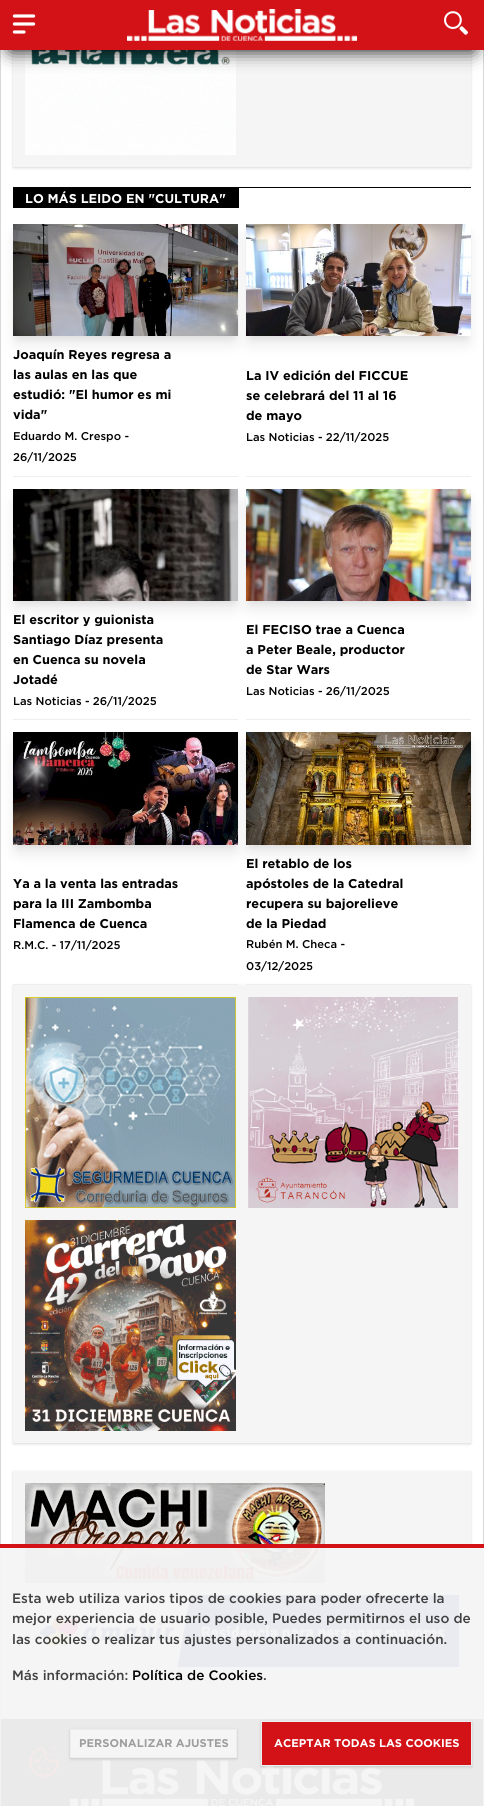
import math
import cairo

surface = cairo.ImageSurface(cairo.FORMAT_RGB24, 484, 1806)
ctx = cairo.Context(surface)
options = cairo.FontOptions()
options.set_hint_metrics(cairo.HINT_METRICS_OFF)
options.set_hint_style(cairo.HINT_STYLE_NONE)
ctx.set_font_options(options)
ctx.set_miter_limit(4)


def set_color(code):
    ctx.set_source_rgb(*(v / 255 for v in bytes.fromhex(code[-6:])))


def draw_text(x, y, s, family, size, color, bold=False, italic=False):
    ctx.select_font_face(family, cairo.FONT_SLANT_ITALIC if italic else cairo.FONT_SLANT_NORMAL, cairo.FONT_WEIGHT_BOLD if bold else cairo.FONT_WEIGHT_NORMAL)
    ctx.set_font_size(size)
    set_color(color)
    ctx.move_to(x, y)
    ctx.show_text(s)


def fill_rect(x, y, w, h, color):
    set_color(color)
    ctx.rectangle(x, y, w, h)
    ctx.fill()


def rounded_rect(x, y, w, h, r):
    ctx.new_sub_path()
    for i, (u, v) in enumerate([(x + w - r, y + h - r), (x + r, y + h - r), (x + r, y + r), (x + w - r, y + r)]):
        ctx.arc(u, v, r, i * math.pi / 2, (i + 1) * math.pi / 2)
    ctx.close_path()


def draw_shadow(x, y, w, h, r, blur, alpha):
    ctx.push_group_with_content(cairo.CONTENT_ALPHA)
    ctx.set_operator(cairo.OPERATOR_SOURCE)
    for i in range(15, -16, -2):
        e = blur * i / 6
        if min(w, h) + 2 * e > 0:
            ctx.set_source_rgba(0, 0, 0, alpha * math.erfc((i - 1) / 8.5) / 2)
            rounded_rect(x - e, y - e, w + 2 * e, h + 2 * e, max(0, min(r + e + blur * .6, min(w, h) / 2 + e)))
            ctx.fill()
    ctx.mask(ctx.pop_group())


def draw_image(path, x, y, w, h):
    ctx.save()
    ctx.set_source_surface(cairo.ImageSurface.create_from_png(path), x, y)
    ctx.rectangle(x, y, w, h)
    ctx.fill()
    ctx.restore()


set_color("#ffffff")
ctx.paint()
fill_rect(483, 50, 1, 1756, "#d8d8d8")
fill_rect(0, 50, 1, 1756, "#d8d8d8")
set_color("#000000")
draw_shadow(13, -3, 458, 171, 0, 1, 0.06)
draw_shadow(13, -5, 458, 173, 0, 1.5, 0.1)
fill_rect(13, 50, 458, 117, "#f5f5f5")
draw_image("assets/img4.png", 25, 50, 211, 105)
set_color("#000000")
draw_shadow(10, 20, 464, 30, 0, 9.5, 1)
fill_rect(0, 0, 484, 50, "#d31217")
draw_image("assets/img1.png", 12, 14, 24, 20)
draw_image("assets/img2.png", 127, 9, 230, 32)
draw_image("assets/img3.png", 444, 11, 24, 24)
fill_rect(13, 187, 458, 1, "#000000")
fill_rect(13, 188, 226, 20, "#000000")
draw_text(25, 203, "LO MÁS LEIDO EN \"CULTURA\"", "Gotham", 12.75, "#ffffff", bold=True)
fill_rect(13, 476, 225, 1, "#eeeeee")
set_color("#000000")
draw_shadow(15, 230, 221, 108, 0, 3, 0.05)
draw_shadow(16, 237, 219, 106, 0, 7.5, 0.1)
draw_image("assets/img5.png", 13, 224, 225, 112)
draw_text(13, 359, "Joaquín Reyes regresa a", "Gotham", 12.75, "#000000", bold=True)
draw_text(13, 379, "las aulas en las que", "Gotham", 12.75, "#000000", bold=True)
draw_text(13, 399, "estudió: \"El humor es mi", "Gotham", 12.75, "#000000", bold=True)
draw_text(13, 419, "vida\"", "Gotham", 12.75, "#000000", bold=True)
draw_text(13, 440, "Eduardo M. Crespo -", "Gotham Medium", 11.25, "#000000")
draw_text(13, 461, "26/11/2025", "Gotham Medium", 11.25, "#000000")
fill_rect(246, 476, 225, 1, "#eeeeee")
set_color("#000000")
draw_shadow(248, 230, 221, 108, 0, 3, 0.05)
draw_shadow(249, 237, 219, 106, 0, 7.5, 0.1)
draw_image("assets/img6.png", 246, 224, 225, 112)
draw_text(246, 380, "La IV edición del FICCUE", "Gotham", 12.75, "#000000", bold=True)
draw_text(246, 400, "se celebrará del 11 al 16", "Gotham", 12.75, "#000000", bold=True)
draw_text(246, 420, "de mayo", "Gotham", 12.75, "#000000", bold=True)
draw_text(246, 441, "Las Noticias - 22/11/2025", "Gotham Medium", 11.25, "#000000")
fill_rect(13, 719, 225, 1, "#eeeeee")
set_color("#000000")
draw_shadow(15, 495, 221, 108, 0, 3, 0.05)
draw_shadow(16, 502, 219, 106, 0, 7.5, 0.1)
draw_image("assets/img7.png", 13, 489, 225, 112)
draw_text(13, 624, "El escritor y guionista", "Gotham", 12.75, "#000000", bold=True)
draw_text(13, 644, "Santiago Díaz presenta", "Gotham", 12.75, "#000000", bold=True)
draw_text(13, 664, "en Cuenca su novela", "Gotham", 12.75, "#000000", bold=True)
draw_text(13, 684, "Jotadé", "Gotham", 12.75, "#000000", bold=True)
draw_text(13, 705, "Las Noticias - 26/11/2025", "Gotham Medium", 11.25, "#000000")
fill_rect(246, 719, 225, 1, "#eeeeee")
set_color("#000000")
draw_shadow(248, 495, 221, 108, 0, 3, 0.05)
draw_shadow(249, 502, 219, 106, 0, 7.5, 0.1)
draw_image("assets/img8.png", 246, 489, 225, 112)
draw_text(246, 634, "El FECISO trae a Cuenca", "Gotham", 12.75, "#000000", bold=True)
draw_text(246, 654, "a Peter Beale, productor", "Gotham", 12.75, "#000000", bold=True)
draw_text(246, 674, "de Star Wars", "Gotham", 12.75, "#000000", bold=True)
draw_text(246, 695, "Las Noticias - 26/11/2025", "Gotham Medium", 11.25, "#000000")
set_color("#000000")
draw_shadow(13, 986, 458, 458, 0, 1, 0.06)
draw_shadow(13, 986, 458, 458, 0, 1.5, 0.1)
fill_rect(13, 984, 225, 1, "#eeeeee")
set_color("#000000")
draw_shadow(15, 738, 221, 109, 0, 3, 0.05)
draw_shadow(16, 745, 219, 107, 0, 7.5, 0.1)
draw_image("assets/img9.png", 13, 732, 225, 113)
draw_text(13, 888, "Ya a la venta las entradas", "Gotham", 12.75, "#000000", bold=True)
draw_text(13, 908, "para la III Zambomba", "Gotham", 12.75, "#000000", bold=True)
draw_text(13, 928, "Flamenca de Cuenca", "Gotham", 12.75, "#000000", bold=True)
draw_text(13, 949, "R.M.C. - 17/11/2025", "Gotham Medium", 11.25, "#000000")
fill_rect(246, 984, 225, 1, "#eeeeee")
set_color("#000000")
draw_shadow(248, 738, 221, 109, 0, 3, 0.05)
draw_shadow(249, 745, 219, 107, 0, 7.5, 0.1)
draw_image("assets/img10.png", 246, 732, 225, 113)
draw_text(246, 868, "El retablo de los", "Gotham", 12.75, "#000000", bold=True)
draw_text(246, 888, "apóstoles de la Catedral", "Gotham", 12.75, "#000000", bold=True)
draw_text(246, 908, "recupera su bajorelieve", "Gotham", 12.75, "#000000", bold=True)
draw_text(246, 928, "de la Piedad", "Gotham", 12.75, "#000000", bold=True)
draw_text(246, 948, "Rubén M. Checa -", "Gotham Medium", 11.25, "#000000")
draw_text(246, 970, "03/12/2025", "Gotham Medium", 11.25, "#000000")
fill_rect(13, 985, 458, 458, "#f5f5f5")
draw_image("assets/img11.png", 25, 997, 211, 211)
draw_image("assets/img12.png", 248, 997, 211, 211)
draw_image("assets/img13.png", 25, 1220, 211, 211)
set_color("#000000")
draw_shadow(13, 1472, 458, 208, 0, 1, 0.06)
draw_shadow(13, 1472, 458, 208, 0, 1.5, 0.1)
fill_rect(13, 1471, 458, 208, "#f5f5f5")
draw_image("assets/img14.png", 25, 1483, 300, 100)
draw_image("assets/img15.png", 25, 1595, 434, 72)
fill_rect(1, 1719, 482, 87, "#161616")
draw_image("assets/img16.png", 70, 1760, 344, 46)
draw_image("assets/img17.png", 29, 1747, 30, 30)
ctx.set_source_rgba(0.961, 0.961, 0.961, 0.95)
ctx.rectangle(0, 1548, 484, 258)
ctx.fill()
fill_rect(0, 1544, 484, 4, "#d31217")
draw_text(12, 1603, "Esta web utiliza varios tipos de cookies para poder ofrecerte la", "Gotham Medium", 13.6, "#414141")
draw_text(12, 1623, "mejor experiencia de usuario posible, Puedes permitirnos el uso de", "Gotham Medium", 13.6, "#414141")
draw_text(12, 1644, "las cookies o realizar tus ajustes personalizados a continuación.", "Gotham Medium", 13.6, "#414141")
draw_text(12, 1680, "Más información:", "Gotham Medium", 13.6, "#414141")
draw_text(132, 1680, "Política de Cookies", "Gotham Medium", 13.6, "#000000")
draw_text(263, 1680, ".", "Gotham Medium", 13.6, "#414141")
set_color("#000000")
draw_shadow(70, 1730, 167, 29, 0, 1, 0.06)
draw_shadow(70, 1730, 167, 29, 0, 1.5, 0.1)
set_color("#f5f5f5")
ctx.rectangle(70.5, 1729.5, 166, 28)
ctx.fill_preserve()
set_color("#eeeeee")
ctx.set_line_width(1)
ctx.stroke()
draw_text(79, 1747, "PERSONALIZAR AJUSTES", "Gotham", 11.25, "#9e9e9e", bold=True)
set_color("#000000")
draw_shadow(261, 1722, 211, 45, 0, 1, 0.06)
draw_shadow(261, 1722, 211, 45, 0, 1.5, 0.1)
set_color("#d31217")
ctx.rectangle(261.5, 1721.5, 210, 44)
ctx.fill_preserve()
set_color("#eeeeee")
ctx.stroke()
draw_text(274, 1747, "ACEPTAR TODAS LAS COOKIES", "Gotham", 11.25, "#ffffff", bold=True)
surface.write_to_png("output.png")
